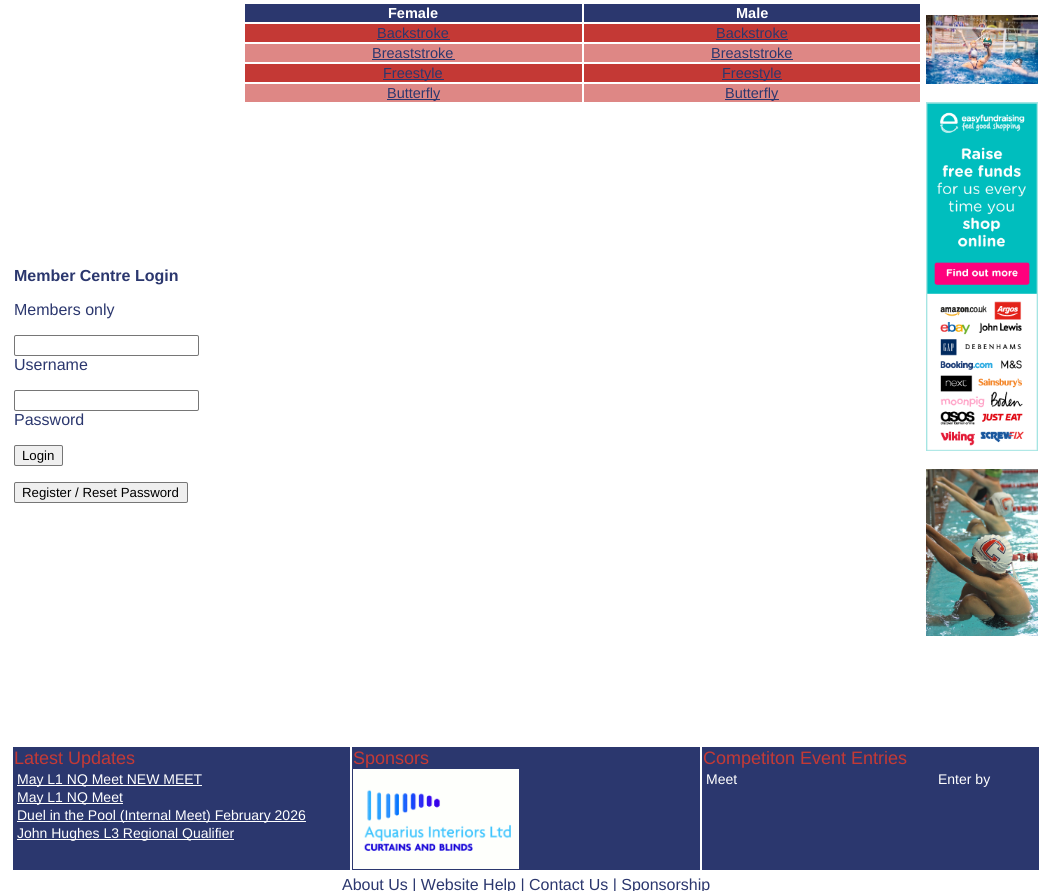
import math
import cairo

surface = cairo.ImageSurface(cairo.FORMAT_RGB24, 1052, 891)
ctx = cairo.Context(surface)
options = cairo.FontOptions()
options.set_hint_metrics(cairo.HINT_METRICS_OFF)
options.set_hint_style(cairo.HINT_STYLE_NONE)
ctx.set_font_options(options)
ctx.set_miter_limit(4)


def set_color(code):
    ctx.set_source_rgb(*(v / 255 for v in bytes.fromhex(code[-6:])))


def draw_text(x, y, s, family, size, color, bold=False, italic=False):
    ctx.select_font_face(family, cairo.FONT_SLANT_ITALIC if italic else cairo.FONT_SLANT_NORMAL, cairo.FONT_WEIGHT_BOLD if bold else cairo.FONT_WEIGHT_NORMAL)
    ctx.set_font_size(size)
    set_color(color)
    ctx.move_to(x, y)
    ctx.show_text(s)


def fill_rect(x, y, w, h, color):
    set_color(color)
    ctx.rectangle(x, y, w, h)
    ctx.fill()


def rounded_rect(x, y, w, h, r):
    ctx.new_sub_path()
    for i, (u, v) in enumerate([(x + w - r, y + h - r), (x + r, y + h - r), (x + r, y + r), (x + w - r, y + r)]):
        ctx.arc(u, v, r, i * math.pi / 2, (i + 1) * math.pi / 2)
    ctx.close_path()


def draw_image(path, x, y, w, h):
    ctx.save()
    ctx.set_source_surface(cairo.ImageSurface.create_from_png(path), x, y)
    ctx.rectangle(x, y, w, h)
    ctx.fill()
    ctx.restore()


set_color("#ffffff")
ctx.paint()
fill_rect(245, 4, 337, 18, "#2b376e")
draw_text(388, 18, "Female", "Liberation Sans", 14.5, "#ffffff", bold=True)
fill_rect(584, 4, 336, 18, "#2b376e")
draw_text(736, 18, "Male", "Liberation Sans", 14.5, "#ffffff", bold=True)
fill_rect(245, 24, 337, 18, "#c43935")
draw_text(377, 38, "Backstroke", "Liberation Sans", 14.5, "#2b376e")
fill_rect(377, 39, 73, 1, "#2b376e")
fill_rect(584, 24, 336, 18, "#c43935")
draw_text(716, 38, "Backstroke", "Liberation Sans", 14.5, "#2b376e")
fill_rect(716, 39, 72, 1, "#2b376e")
fill_rect(245, 44, 337, 18, "#de8785")
draw_text(372, 58, "Breaststroke", "Liberation Sans", 14.5, "#2b376e")
fill_rect(372, 59, 83, 1, "#2b376e")
fill_rect(584, 44, 336, 18, "#de8785")
draw_text(711, 58, "Breaststroke", "Liberation Sans", 14.5, "#2b376e")
fill_rect(711, 59, 82, 1, "#2b376e")
fill_rect(245, 64, 337, 18, "#c43935")
fill_rect(383, 79, 61, 1, "#2b376e")
draw_text(383, 78, "Freestyle", "Liberation Sans", 14.5, "#2b376e")
fill_rect(584, 64, 336, 18, "#c43935")
fill_rect(722, 79, 60, 1, "#2b376e")
draw_text(722, 78, "Freestyle", "Liberation Sans", 14.5, "#2b376e")
fill_rect(245, 84, 337, 18, "#de8785")
fill_rect(387, 99, 53, 1, "#2b376e")
draw_text(387, 98, "Butterfly", "Liberation Sans", 14.5, "#2b376e")
fill_rect(584, 84, 336, 18, "#de8785")
fill_rect(725, 99, 54, 1, "#2b376e")
draw_text(725, 98, "Butterfly", "Liberation Sans", 14.5, "#2b376e")
draw_image("assets/img1.png", 926, 15, 112, 69)
draw_image("assets/img2.png", 926, 102, 112, 349)
draw_image("assets/img3.png", 926, 469, 112, 167)
draw_text(14, 281, "Member Centre Login", "Liberation Sans", 16, "#2b376e", bold=True)
draw_text(14, 315, "Members only", "Liberation Sans", 16, "#2b376e")
rounded_rect(14.5, 335.5, 184, 20, 1.5)
set_color("#767676")
ctx.set_line_width(1)
ctx.stroke()
draw_text(14, 370, "Username", "Liberation Sans", 16, "#2b376e")
rounded_rect(14.5, 390.5, 184, 20, 1.5)
set_color("#767676")
ctx.stroke()
draw_text(14, 425, "Password", "Liberation Sans", 16, "#2b376e")
set_color("#efefef")
rounded_rect(14.5, 445.5, 48, 20, 1.5)
ctx.fill_preserve()
set_color("#767676")
ctx.stroke()
draw_text(22, 460, "Login", "Liberation Sans", 13.25, "#000000")
set_color("#efefef")
rounded_rect(14.5, 482.5, 173, 20, 1.5)
ctx.fill_preserve()
set_color("#767676")
ctx.stroke()
draw_text(22, 497, "Register / Reset Password", "Liberation Sans", 13.25, "#000000")
fill_rect(13, 747, 337, 123, "#2b376e")
draw_text(14, 764, "Latest Updates", "Liberation Sans", 18, "#c43935")
fill_rect(17, 785, 185, 1, "#ffffff")
draw_text(17, 784, "May L1 NQ Meet NEW MEET", "Liberation Sans", 14, "#ffffff")
fill_rect(17, 803, 106, 1, "#ffffff")
draw_text(17, 802, "May L1 NQ Meet", "Liberation Sans", 14, "#ffffff")
fill_rect(17, 821, 289, 1, "#ffffff")
draw_text(17, 820, "Duel in the Pool (Internal Meet) February 2026", "Liberation Sans", 14, "#ffffff")
fill_rect(17, 839, 217, 1, "#ffffff")
draw_text(17, 838, "John Hughes L3 Regional Qualifier", "Liberation Sans", 14, "#ffffff")
fill_rect(352, 747, 348, 123, "#2b376e")
draw_text(353, 764, "Sponsors", "Liberation Sans", 18, "#c43935")
draw_image("assets/img4.png", 353, 769, 166, 100)
fill_rect(702, 747, 337, 123, "#2b376e")
draw_text(703, 764, "Competiton Event Entries", "Liberation Sans", 18, "#c43935")
draw_text(706, 784, "Meet", "Liberation Sans", 14, "#ffffff")
draw_text(938, 784, "Enter by", "Liberation Sans", 14, "#ffffff")
draw_text(342, 890, "About Us | Website Help | Contact Us | Sponsorship", "Liberation Sans", 16, "#2b376e")
surface.write_to_png("output.png")
